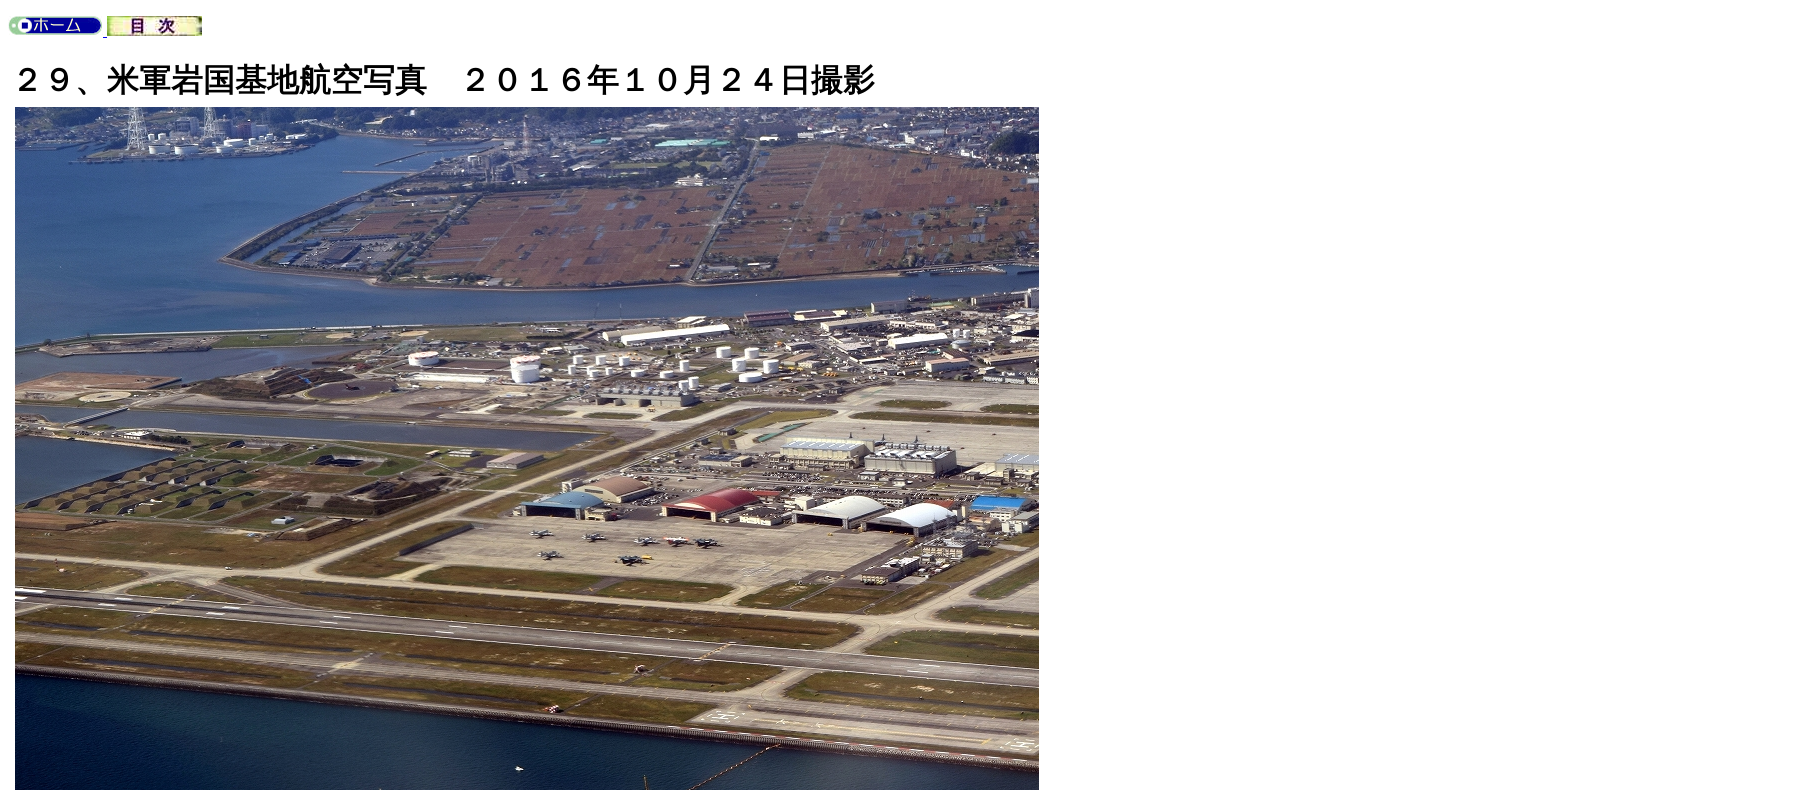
import math
import cairo

surface = cairo.ImageSurface(cairo.FORMAT_RGB24, 1793, 790)
ctx = cairo.Context(surface)
options = cairo.FontOptions()
options.set_hint_metrics(cairo.HINT_METRICS_OFF)
options.set_hint_style(cairo.HINT_STYLE_NONE)
ctx.set_font_options(options)
ctx.set_miter_limit(4)


def set_color(code):
    ctx.set_source_rgb(*(v / 255 for v in bytes.fromhex(code[-6:])))


def draw_text(x, y, s, family, size, color, bold=False, italic=False):
    ctx.select_font_face(family, cairo.FONT_SLANT_ITALIC if italic else cairo.FONT_SLANT_NORMAL, cairo.FONT_WEIGHT_BOLD if bold else cairo.FONT_WEIGHT_NORMAL)
    ctx.set_font_size(size)
    set_color(color)
    ctx.move_to(x, y)
    ctx.show_text(s)


def fill_rect(x, y, w, h, color):
    set_color(color)
    ctx.rectangle(x, y, w, h)
    ctx.fill()


def draw_image(path, x, y, w, h):
    ctx.save()
    ctx.set_source_surface(cairo.ImageSurface.create_from_png(path), x, y)
    ctx.rectangle(x, y, w, h)
    ctx.fill()
    ctx.restore()


set_color("#ffffff")
ctx.paint()
draw_image("assets/img1.png", 8, 16, 95, 19)
draw_image("assets/img2.png", 107, 16, 95, 20)
fill_rect(103, 37, 4, 1, "#0000ee")
draw_text(11, 91, "２９、米軍岩国基地航空写真　２０１６年１０月２４日撮影", "WenQuanYi Zen Hei", 32, "#000000", bold=True)
draw_image("assets/img3.png", 15, 107, 1024, 683)
surface.write_to_png("output.png")
